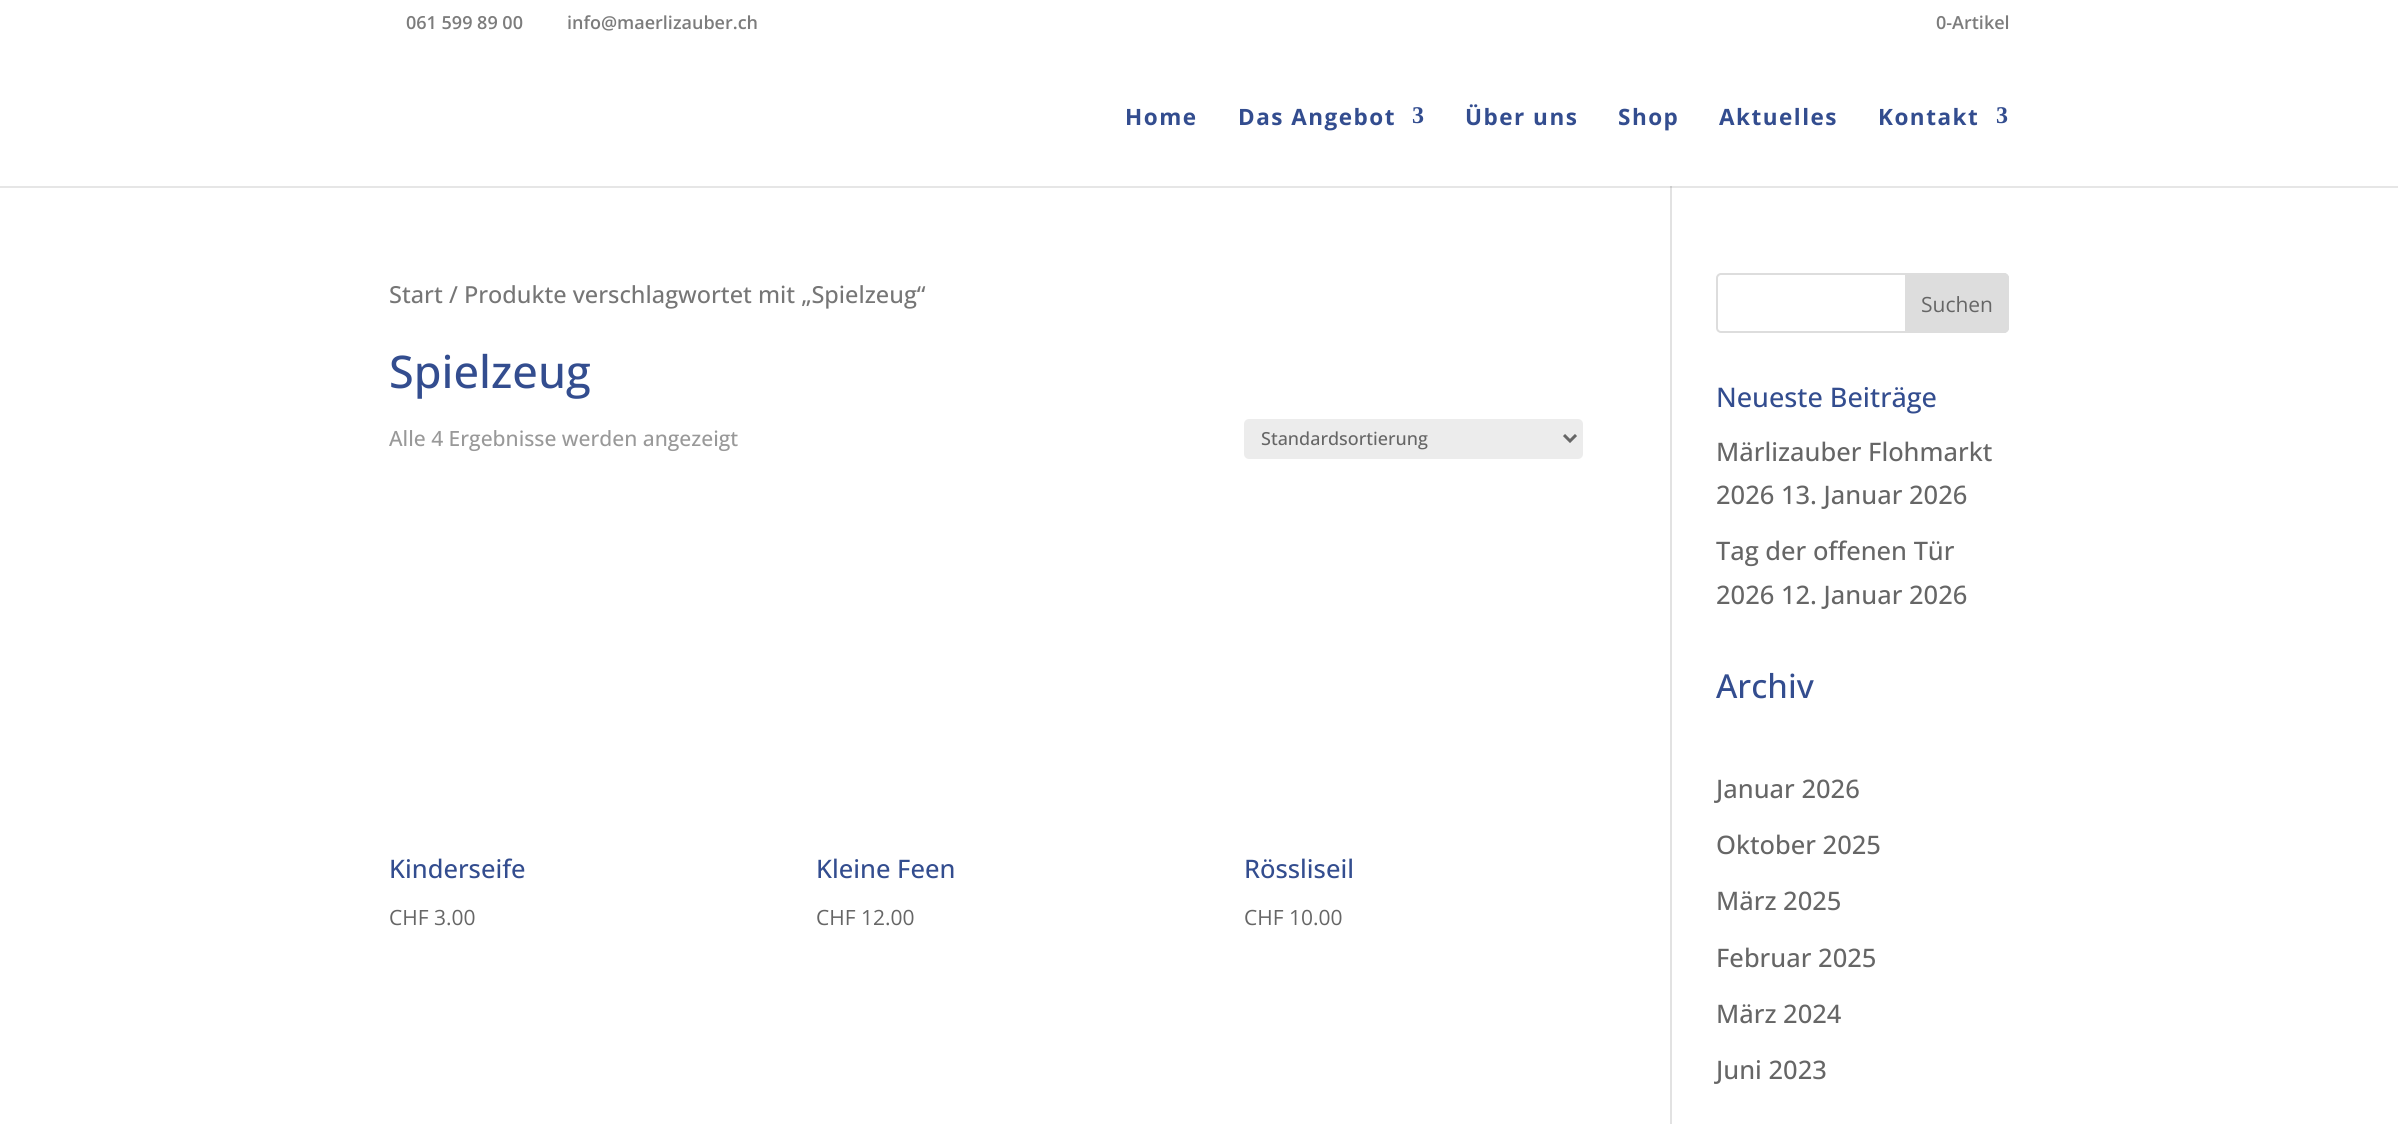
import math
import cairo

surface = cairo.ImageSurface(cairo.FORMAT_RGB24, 2398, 1124)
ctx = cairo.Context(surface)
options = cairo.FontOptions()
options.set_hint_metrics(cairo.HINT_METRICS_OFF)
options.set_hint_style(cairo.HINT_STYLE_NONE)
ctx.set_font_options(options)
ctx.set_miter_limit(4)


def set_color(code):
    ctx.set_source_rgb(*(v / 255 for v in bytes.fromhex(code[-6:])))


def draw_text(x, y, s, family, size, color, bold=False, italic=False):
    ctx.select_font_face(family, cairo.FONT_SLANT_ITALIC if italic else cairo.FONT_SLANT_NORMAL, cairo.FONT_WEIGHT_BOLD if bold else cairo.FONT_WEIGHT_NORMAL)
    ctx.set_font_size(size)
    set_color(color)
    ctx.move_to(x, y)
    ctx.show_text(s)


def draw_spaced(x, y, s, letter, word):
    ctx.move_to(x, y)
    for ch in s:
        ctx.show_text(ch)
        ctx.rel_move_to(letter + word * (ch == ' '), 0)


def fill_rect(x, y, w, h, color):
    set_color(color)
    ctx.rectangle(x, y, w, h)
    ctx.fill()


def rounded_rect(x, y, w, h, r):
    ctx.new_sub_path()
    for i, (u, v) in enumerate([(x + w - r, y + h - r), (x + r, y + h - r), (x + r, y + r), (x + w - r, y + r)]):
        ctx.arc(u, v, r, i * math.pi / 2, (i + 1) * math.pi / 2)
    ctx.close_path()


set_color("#ffffff")
ctx.paint()
draw_text(406, 29, "061 599 89 00", "Open Sans SemiBold", 18, "#7c7c7c")
draw_text(567, 29, "info@maerlizauber.ch", "Open Sans SemiBold", 18, "#7c7c7c")
draw_text(1936, 29, "0-Artikel", "Open Sans SemiBold", 18, "#7c7c7c")
fill_rect(1670, 186, 2, 938, "#e2e2e2")
ctx.set_source_rgba(0, 0, 0, 0.1)
ctx.new_path()
ctx.move_to(0, 186)
ctx.line_to(0, 188)
ctx.line_to(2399, 188)
ctx.line_to(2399, 47)
ctx.line_to(2398, 47)
ctx.line_to(2398, 186)
ctx.close_path()
ctx.fill()
ctx.select_font_face("Open Sans", cairo.FONT_SLANT_NORMAL, cairo.FONT_WEIGHT_BOLD)
ctx.set_font_size(22.5)
set_color("#334d8f")
draw_spaced(1125, 125, "Home", 1.5, 0)
draw_spaced(1238, 125, "Das Angebot", 1.5, 0)
ctx.select_font_face("Liberation Serif", cairo.FONT_SLANT_NORMAL, cairo.FONT_WEIGHT_BOLD)
ctx.set_font_size(24)
draw_spaced(1412, 123, "3", 1.5, 0)
ctx.select_font_face("Open Sans", cairo.FONT_SLANT_NORMAL, cairo.FONT_WEIGHT_BOLD)
ctx.set_font_size(22.5)
draw_spaced(1465, 125, "Über uns", 1.5, 0)
draw_spaced(1618, 125, "Shop", 1.5, 0)
draw_spaced(1719, 125, "Aktuelles", 1.5, 0)
draw_spaced(1878, 125, "Kontakt", 1.5, 0)
ctx.select_font_face("Liberation Serif", cairo.FONT_SLANT_NORMAL, cairo.FONT_WEIGHT_BOLD)
ctx.set_font_size(24)
draw_spaced(1996, 123, "3", 1.5, 0)
draw_text(389, 303, "Start / Produkte verschlagwortet mit „Spielzeug“", "Open Sans Medium", 23.5, "#767676")
draw_text(389, 388, "Spielzeug", "Open Sans Medium", 45, "#334d8f")
draw_text(389, 446, "Alle 4 Ergebnisse werden angezeigt", "Open Sans Medium", 21, "#999999")
set_color("#ececec")
rounded_rect(1244, 419, 339, 40, 5)
ctx.fill()
ctx.new_path()
ctx.move_to(1564, 435)
ctx.line_to(1570, 441)
ctx.line_to(1576, 435)
set_color("#666666")
ctx.set_line_width(3)
ctx.stroke()
draw_text(1261, 445, "Standardsortierung", "Open Sans Medium", 18, "#666666")
draw_text(389, 878, "Kinderseife", "Open Sans Medium", 25.5, "#334d8f")
draw_text(389, 925, "CHF 3.00", "Open Sans", 21, "#666666")
draw_text(816, 878, "Kleine Feen", "Open Sans Medium", 25.5, "#334d8f")
draw_text(816, 925, "CHF 12.00", "Open Sans", 21, "#666666")
draw_text(1244, 878, "Rössliseil", "Open Sans Medium", 25.5, "#334d8f")
draw_text(1244, 925, "CHF 10.00", "Open Sans", 21, "#666666")
rounded_rect(1717, 274, 291, 58, 4)
set_color("#dddddd")
ctx.set_line_width(2)
ctx.stroke()
ctx.new_path()
ctx.move_to(1906, 274)
ctx.line_to(2004, 274)
ctx.curve_to(2006, 274, 2008, 276, 2008, 278)
ctx.line_to(2008, 328)
ctx.curve_to(2008, 330, 2006, 332, 2004, 332)
ctx.line_to(1906, 332)
ctx.close_path()
ctx.fill_preserve()
ctx.stroke()
draw_text(1921, 312, "Suchen", "Open Sans", 21, "#666666")
draw_text(1716, 407, "Neueste Beiträge", "Open Sans Medium", 27, "#334d8f")
draw_text(1716, 461, "Märlizauber Flohmarkt", "Open Sans Medium", 25.5, "#666666")
draw_text(1716, 504, "2026 13. Januar 2026", "Open Sans Medium", 25.5, "#666666")
draw_text(1716, 560, "Tag der offenen Tür", "Open Sans Medium", 25.5, "#666666")
draw_text(1716, 604, "2026 12. Januar 2026", "Open Sans Medium", 25.5, "#666666")
draw_text(1716, 698, "Archiv", "Open Sans Medium", 33, "#334d8f")
draw_text(1716, 798, "Januar 2026", "Open Sans Medium", 25.5, "#666666")
draw_text(1716, 854, "Oktober 2025", "Open Sans Medium", 25.5, "#666666")
draw_text(1716, 910, "März 2025", "Open Sans Medium", 25.5, "#666666")
draw_text(1716, 967, "Februar 2025", "Open Sans Medium", 25.5, "#666666")
draw_text(1716, 1023, "März 2024", "Open Sans Medium", 25.5, "#666666")
draw_text(1716, 1079, "Juni 2023", "Open Sans Medium", 25.5, "#666666")
surface.write_to_png("output.png")
